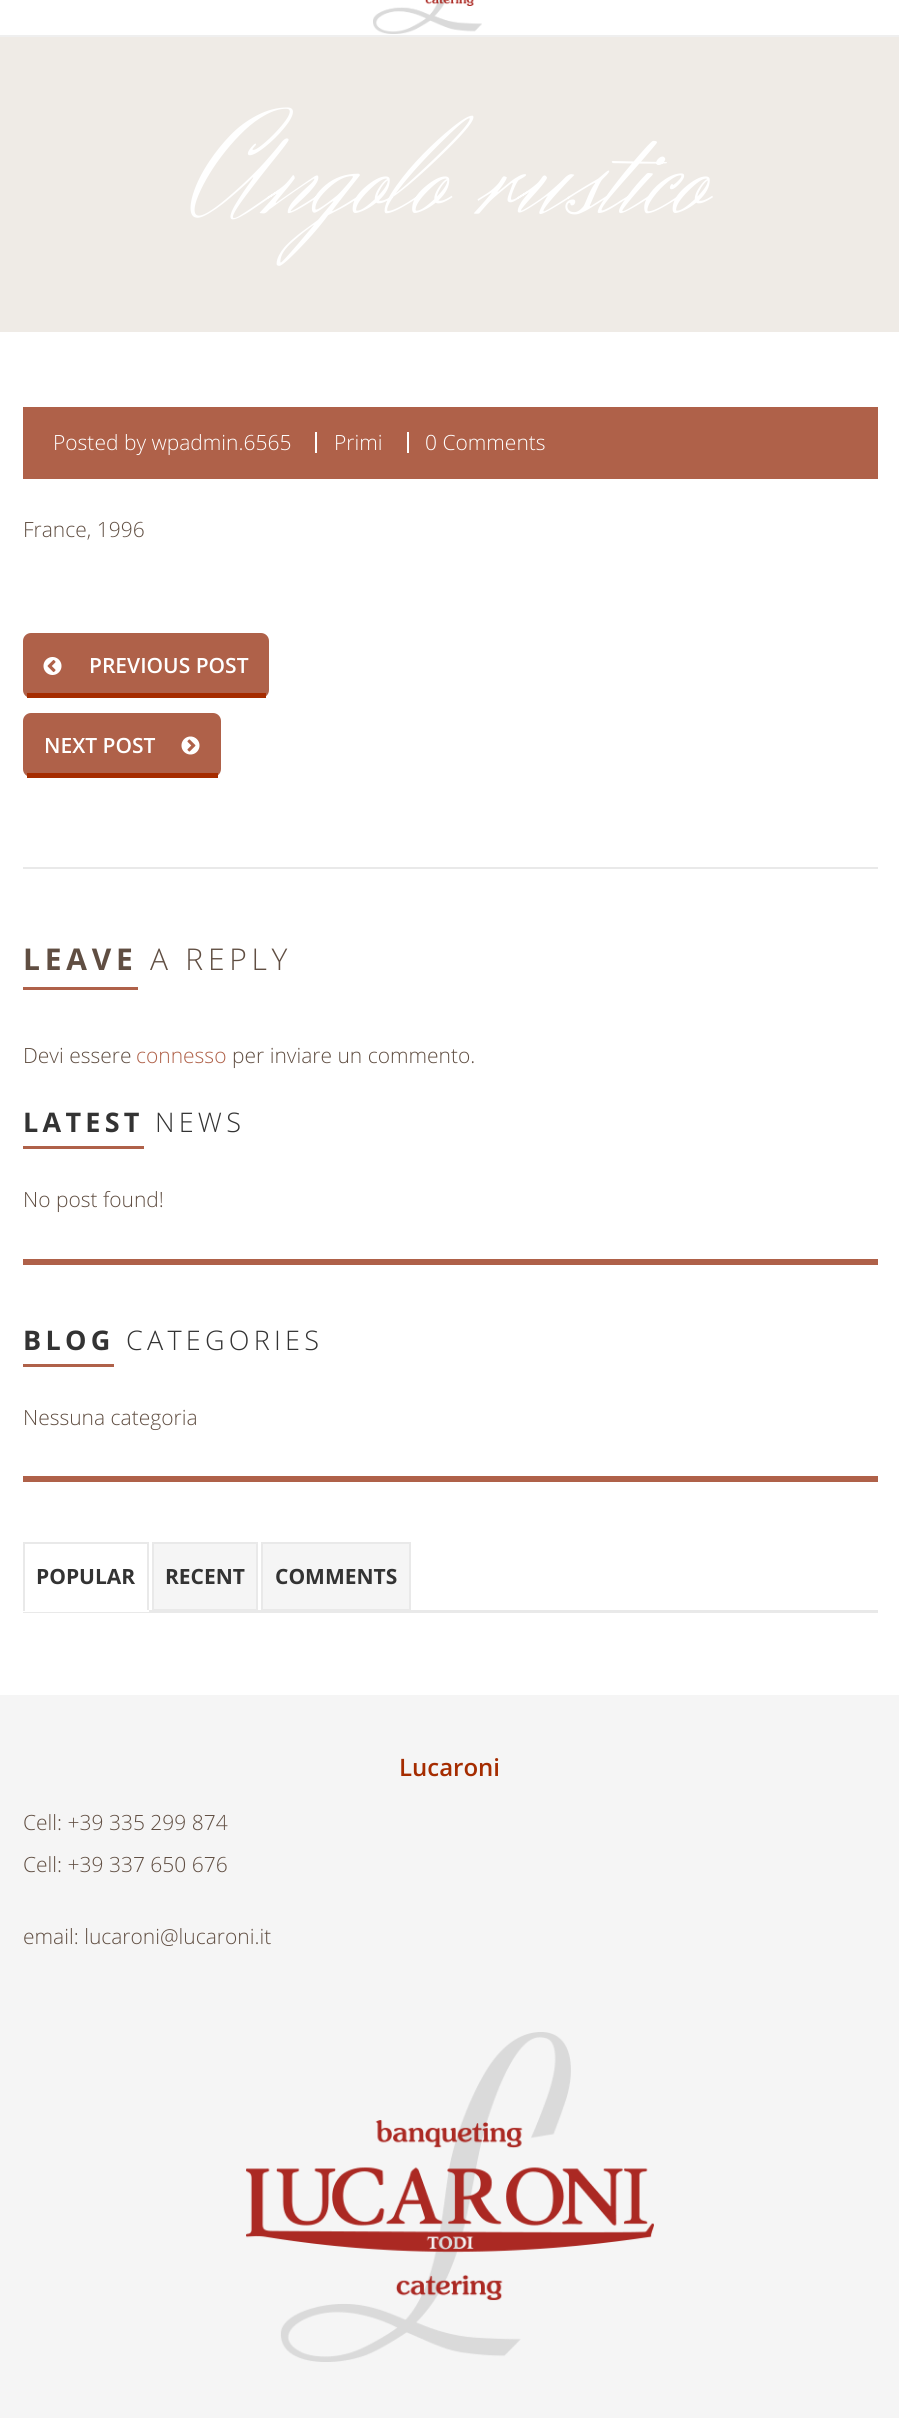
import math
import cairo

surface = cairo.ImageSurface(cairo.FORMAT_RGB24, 899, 2418)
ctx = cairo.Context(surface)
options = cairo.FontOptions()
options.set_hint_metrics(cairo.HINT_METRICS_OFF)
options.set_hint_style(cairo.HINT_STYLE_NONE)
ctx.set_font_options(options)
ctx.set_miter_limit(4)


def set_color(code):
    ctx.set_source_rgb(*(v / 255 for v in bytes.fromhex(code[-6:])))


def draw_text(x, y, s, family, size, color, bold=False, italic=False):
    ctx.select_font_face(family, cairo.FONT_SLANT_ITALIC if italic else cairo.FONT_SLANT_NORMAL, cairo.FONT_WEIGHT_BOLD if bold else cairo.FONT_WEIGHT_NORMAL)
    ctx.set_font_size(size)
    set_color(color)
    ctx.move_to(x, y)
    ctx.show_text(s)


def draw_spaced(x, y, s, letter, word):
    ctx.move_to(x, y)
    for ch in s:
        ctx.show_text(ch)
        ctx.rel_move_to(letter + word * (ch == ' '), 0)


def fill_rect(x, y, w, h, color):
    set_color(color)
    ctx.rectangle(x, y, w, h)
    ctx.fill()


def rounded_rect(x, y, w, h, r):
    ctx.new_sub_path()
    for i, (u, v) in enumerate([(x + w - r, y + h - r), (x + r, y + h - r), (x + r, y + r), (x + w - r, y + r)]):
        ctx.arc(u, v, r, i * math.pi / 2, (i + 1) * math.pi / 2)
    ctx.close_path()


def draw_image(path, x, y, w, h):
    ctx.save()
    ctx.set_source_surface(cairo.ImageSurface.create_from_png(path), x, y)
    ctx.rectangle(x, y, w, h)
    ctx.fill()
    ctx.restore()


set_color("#ffffff")
ctx.paint()
fill_rect(0, 35, 899, 2, "#efefef")
draw_image("assets/img1.png", 373, 0, 109, 34)
fill_rect(0, 37, 899, 295, "#efebe6")
draw_text(193, 213, "Angolo rustico", "Herr Von Muellerhoff", 144, "#ffffff")
fill_rect(23, 407, 855, 72, "#af6149")
draw_text(53, 450, "Posted by wpadmin.6565", "Open Sans Light", 21, "#ffffff")
fill_rect(315, 432, 2, 21, "#ffffff")
draw_text(334, 450, "Primi", "Open Sans Light", 21, "#ffffff")
fill_rect(407, 432, 2, 21, "#ffffff")
draw_text(425, 450, "0 Comments", "Open Sans Light", 21, "#ffffff")
draw_text(23, 537, "France, 1996", "Open Sans Light", 21, "#604e42")
set_color("#af6149")
rounded_rect(23, 633, 246, 65, 8)
ctx.fill()
fill_rect(27, 693, 239, 5, "#a52c00")
draw_image("assets/img2.png", 43, 657, 19, 18)
draw_text(89, 673, "PREVIOUS POST", "Open Sans SemiBold", 21, "#ffffff")
set_color("#af6149")
rounded_rect(23, 713, 198, 64, 8)
ctx.fill()
fill_rect(27, 773, 191, 5, "#a52c00")
draw_text(44, 753, "NEXT POST", "Open Sans SemiBold", 21, "#ffffff")
draw_image("assets/img3.png", 181, 736, 19, 19)
fill_rect(23, 867, 855, 2, "#e9e9e9")
fill_rect(23, 987, 115, 3, "#af6149")
ctx.select_font_face("Open Sans", cairo.FONT_SLANT_NORMAL, cairo.FONT_WEIGHT_BOLD)
ctx.set_font_size(30)
set_color("#604e42")
draw_spaced(23, 970, "LEAVE", 4.75, 0)
ctx.select_font_face("Open Sans Light")
draw_spaced(150, 970, "A REPLY", 4.75, 0)
draw_text(23, 1063, "Devi essere", "Open Sans Light", 21, "#604e42")
draw_text(136, 1063, "connesso", "Open Sans Light", 21, "#af6149")
draw_text(232, 1063, "per inviare un commento.", "Open Sans Light", 21, "#604e42")
fill_rect(23, 1259, 855, 6, "#af6149")
fill_rect(23, 1146, 121, 3, "#af6149")
ctx.select_font_face("Open Sans", cairo.FONT_SLANT_NORMAL, cairo.FONT_WEIGHT_BOLD)
ctx.set_font_size(27)
set_color("#333333")
draw_spaced(23, 1132, "LATEST", 4.25, 0)
ctx.select_font_face("Open Sans Light")
draw_spaced(155, 1132, "NEWS", 4.25, 0)
draw_text(23, 1207, "No post found!", "Open Sans Light", 21, "#604e42")
fill_rect(23, 1476, 855, 6, "#af6149")
fill_rect(23, 1364, 91, 3, "#af6149")
ctx.select_font_face("Open Sans", cairo.FONT_SLANT_NORMAL, cairo.FONT_WEIGHT_BOLD)
ctx.set_font_size(27)
set_color("#333333")
draw_spaced(23, 1350, "BLOG", 4.25, 0)
ctx.select_font_face("Open Sans Light")
draw_spaced(126, 1350, "CATEGORIES", 4.25, 0)
draw_text(23, 1425, "Nessuna categoria", "Open Sans Light", 21, "#604e42")
fill_rect(23, 1542, 126, 2, "#e9e9e9")
fill_rect(23, 1610, 855, 3, "#e9e9e9")
fill_rect(147, 1542, 2, 69, "#e9e9e9")
fill_rect(23, 1610, 126, 2, "#ffffff")
fill_rect(23, 1542, 2, 69, "#e9e9e9")
draw_text(36, 1584, "POPULAR", "Open Sans", 21, "#333333", bold=True)
set_color("#f5f5f5")
ctx.rectangle(153, 1543, 104, 67)
ctx.fill_preserve()
set_color("#e9e9e9")
ctx.stroke()
draw_text(165, 1584, "RECENT", "Open Sans", 21, "#333333", bold=True)
set_color("#f5f5f5")
ctx.rectangle(262, 1543, 148, 67)
ctx.fill_preserve()
set_color("#e9e9e9")
ctx.stroke()
draw_text(275, 1584, "COMMENTS", "Open Sans", 21, "#333333", bold=True)
fill_rect(0, 1695, 899, 723, "#f5f5f5")
draw_text(399, 1776, "Lucaroni", "Open Sans SemiBold", 24, "#a52c00")
draw_text(23, 1830, "Cell: +39 335 299 874", "Open Sans Light", 21, "#604e42")
draw_text(23, 1872, "Cell: +39 337 650 676", "Open Sans Light", 21, "#604e42")
draw_text(23, 1944, "email: lucaroni@lucaroni.it", "Open Sans Light", 21, "#604e42")
draw_image("assets/img4.png", 246, 2032, 408, 330)
surface.write_to_png("output.png")
